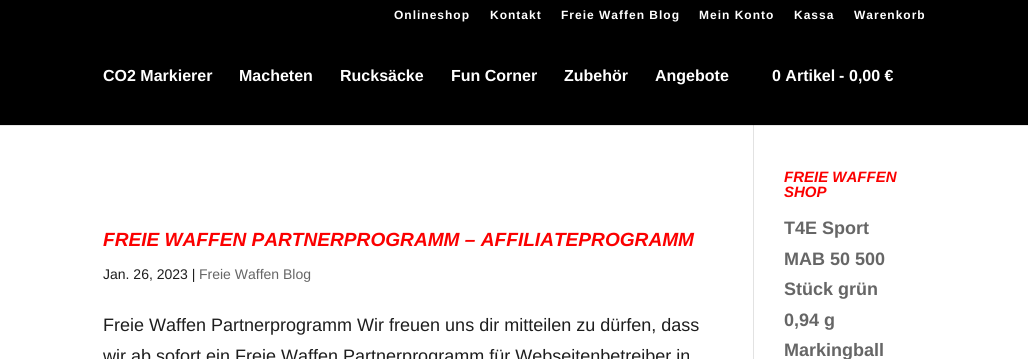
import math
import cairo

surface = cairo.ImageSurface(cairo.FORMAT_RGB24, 1028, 359)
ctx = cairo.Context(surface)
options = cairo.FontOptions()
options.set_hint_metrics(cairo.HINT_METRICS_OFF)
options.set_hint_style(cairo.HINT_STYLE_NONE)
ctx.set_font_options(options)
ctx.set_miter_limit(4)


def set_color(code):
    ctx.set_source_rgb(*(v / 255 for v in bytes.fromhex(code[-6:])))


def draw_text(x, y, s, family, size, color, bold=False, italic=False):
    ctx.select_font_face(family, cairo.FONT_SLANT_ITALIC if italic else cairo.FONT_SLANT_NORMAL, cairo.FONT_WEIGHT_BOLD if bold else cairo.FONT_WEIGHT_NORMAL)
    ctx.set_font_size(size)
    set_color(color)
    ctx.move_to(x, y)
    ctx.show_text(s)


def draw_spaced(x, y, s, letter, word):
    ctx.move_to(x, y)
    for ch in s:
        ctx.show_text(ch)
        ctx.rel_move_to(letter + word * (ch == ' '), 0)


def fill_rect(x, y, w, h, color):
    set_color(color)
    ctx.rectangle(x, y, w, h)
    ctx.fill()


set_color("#000000")
ctx.paint()
ctx.select_font_face("Liberation Sans", cairo.FONT_SLANT_NORMAL, cairo.FONT_WEIGHT_BOLD)
ctx.set_font_size(12)
set_color("#ffffff")
draw_spaced(394, 19, "Onlineshop", 1, 0)
draw_spaced(490, 19, "Kontakt", 1, 0)
draw_spaced(561, 19, "Freie Waffen Blog", 1, 0)
draw_spaced(699, 19, "Mein Konto", 1, 0)
draw_spaced(794, 19, "Kassa", 1, 0)
draw_spaced(854, 19, "Warenkorb", 1, 0)
draw_text(103, 81, "CO2 Markierer", "Liberation Sans", 16, "#ffffff", bold=True)
draw_text(239, 81, "Macheten", "Liberation Sans", 16, "#ffffff", bold=True)
draw_text(340, 81, "Rucksäcke", "Liberation Sans", 16, "#ffffff", bold=True)
draw_text(451, 81, "Fun Corner", "Liberation Sans", 16, "#ffffff", bold=True)
draw_text(564, 81, "Zubehör", "Liberation Sans", 16, "#ffffff", bold=True)
draw_text(655, 81, "Angebote", "Liberation Sans", 16, "#ffffff", bold=True)
draw_text(772, 81, "0 Artikel", "Liberation Sans", 16, "#ffffff", bold=True)
draw_text(839, 81, "-", "Liberation Sans", 16, "#ffffff", bold=True)
draw_text(849, 81, "0,00 €", "Liberation Sans", 16, "#ffffff", bold=True)
fill_rect(0, 126, 1028, 233, "#ffffff")
fill_rect(0, 125, 1028, 1, "#e6e6e6")
fill_rect(753, 126, 1, 233, "#e2e2e2")
fill_rect(753, 125, 1, 1, "#cbcbcb")
draw_text(103, 246, "FREIE WAFFEN PARTNERPROGRAMM – AFFILIATEPROGRAMM", "Liberation Sans", 19.1, "#fb0000", bold=True, italic=True)
draw_text(103, 279, "Jan. 26, 2023 |", "Liberation Sans", 14, "#1e1e1e")
draw_text(199, 279, "Freie Waffen Blog", "Liberation Sans", 14, "#666666")
draw_text(103, 331, "Freie Waffen Partnerprogramm Wir freuen uns dir mitteilen zu dürfen, dass", "Liberation Sans", 18, "#1e1e1e")
draw_text(103, 362, "wir ab sofort ein Freie Waffen Partnerprogramm für Webseitenbetreiber in", "Liberation Sans", 18, "#1e1e1e")
draw_text(784, 182, "FREIE WAFFEN", "Liberation Sans", 15, "#fb0000", bold=True, italic=True)
draw_text(784, 197, "SHOP", "Liberation Sans", 15, "#fb0000", bold=True, italic=True)
draw_text(784, 234, "T4E Sport", "Liberation Sans", 18, "#666666", bold=True)
draw_text(784, 265, "MAB 50 500", "Liberation Sans", 18, "#666666", bold=True)
draw_text(784, 295, "Stück grün", "Liberation Sans", 18, "#666666", bold=True)
draw_text(784, 326, "0,94 g", "Liberation Sans", 18, "#666666", bold=True)
draw_text(784, 356, "Markingball", "Liberation Sans", 18, "#666666", bold=True)
surface.write_to_png("output.png")
